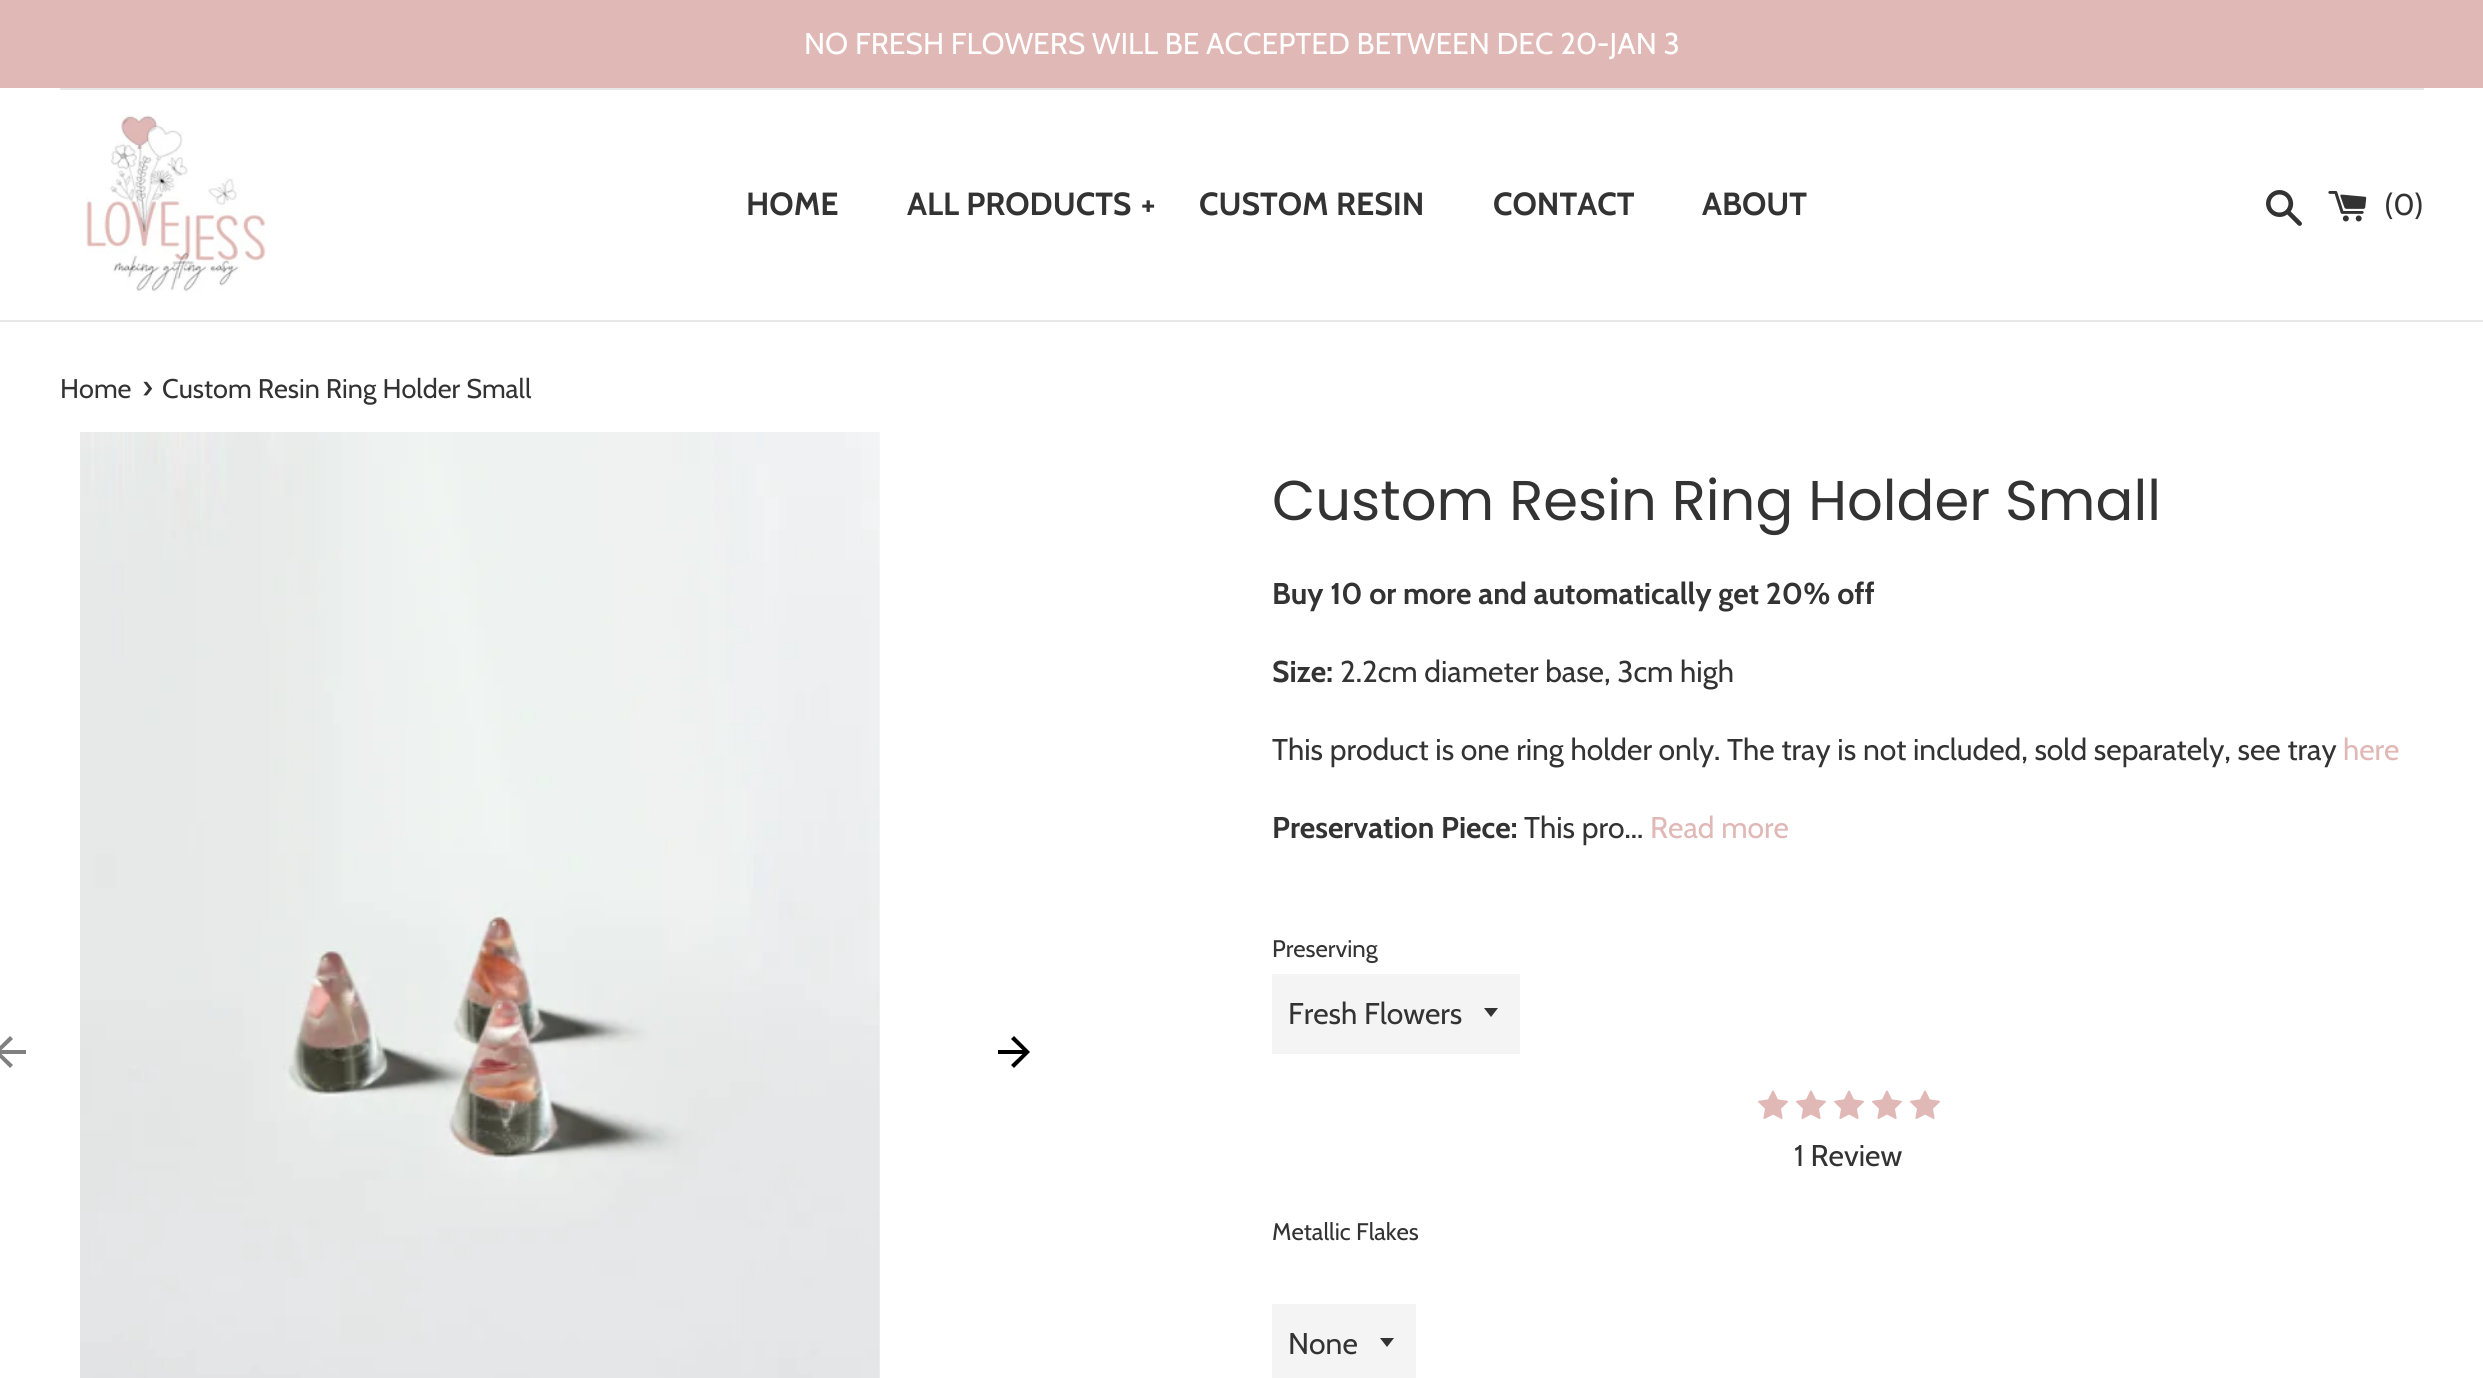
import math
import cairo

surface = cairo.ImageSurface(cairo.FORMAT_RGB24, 2483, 1378)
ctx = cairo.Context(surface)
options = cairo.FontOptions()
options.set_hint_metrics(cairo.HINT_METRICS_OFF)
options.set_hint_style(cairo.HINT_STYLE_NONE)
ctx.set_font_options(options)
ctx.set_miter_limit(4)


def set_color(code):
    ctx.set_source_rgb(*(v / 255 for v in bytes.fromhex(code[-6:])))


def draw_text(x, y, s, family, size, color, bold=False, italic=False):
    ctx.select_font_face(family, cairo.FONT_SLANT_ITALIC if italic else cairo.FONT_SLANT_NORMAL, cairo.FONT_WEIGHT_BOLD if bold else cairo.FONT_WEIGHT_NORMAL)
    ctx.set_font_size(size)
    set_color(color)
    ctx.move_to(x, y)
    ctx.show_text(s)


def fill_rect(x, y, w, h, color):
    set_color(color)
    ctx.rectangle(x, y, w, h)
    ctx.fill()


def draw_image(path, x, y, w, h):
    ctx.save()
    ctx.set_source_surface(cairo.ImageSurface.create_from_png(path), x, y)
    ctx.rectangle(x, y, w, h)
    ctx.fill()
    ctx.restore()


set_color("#ffffff")
ctx.paint()
fill_rect(0, 0, 2483, 88, "#e0b8b5")
draw_text(804, 54, "NO FRESH FLOWERS WILL BE ACCEPTED BETWEEN DEC 20-JAN 3", "Cabin", 30, "#ffffff")
fill_rect(60, 88, 2364, 2, "#e8e8e8")
draw_image("assets/img1.png", 86, 115, 180, 178)
draw_text(746, 215, "HOME", "Cabin", 32, "#333333", bold=True)
draw_text(907, 215, "ALL PRODUCTS", "Cabin", 32, "#333333", bold=True)
draw_text(1141, 215, "+", "Cabin", 32, "#333333", bold=True)
draw_text(1199, 215, "CUSTOM RESIN", "Cabin", 32, "#333333", bold=True)
draw_text(1493, 215, "CONTACT", "Cabin", 32, "#333333", bold=True)
draw_text(1702, 215, "ABOUT", "Cabin", 32, "#333333", bold=True)
draw_image("assets/img2.png", 2266, 190, 36, 36)
draw_image("assets/img3.png", 2328, 191, 39, 31)
draw_text(2384, 215, "(0)", "Cabin", 30, "#333333")
fill_rect(0, 320, 2483, 2, "#e8e8e8")
draw_text(60, 398, "Home", "Cabin", 27, "#333333")
draw_text(142, 398, "›", "Cabin", 33, "#333333")
draw_text(162, 398, "Custom Resin Ring Holder Small", "Cabin", 27, "#333333")
set_color("#808080")
ctx.new_path()
ctx.move_to(26, 1050)
ctx.line_to(1.5, 1050)
ctx.line_to(13, 1039)
ctx.line_to(10, 1036)
ctx.line_to(-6, 1052)
ctx.line_to(10, 1068)
ctx.line_to(13, 1065)
ctx.line_to(1.5, 1054)
ctx.line_to(26, 1054)
ctx.close_path()
ctx.fill()
draw_image("assets/img4.png", 80, 432, 800, 946)
set_color("#000000")
ctx.new_path()
ctx.move_to(1014, 1036)
ctx.line_to(1011, 1039)
ctx.line_to(1022.5, 1050)
ctx.line_to(998, 1050)
ctx.line_to(998, 1054)
ctx.line_to(1022.5, 1054)
ctx.line_to(1011, 1065)
ctx.line_to(1014, 1068)
ctx.line_to(1030, 1052)
ctx.close_path()
ctx.fill()
draw_text(1272, 520, "Custom Resin Ring Holder Small", "Poppins", 56, "#333333")
draw_text(1272, 604, "Buy 10 or more and automatically get 20% off", "Cabin", 30, "#333333", bold=True)
draw_text(1272, 682, "Size:", "Cabin", 30, "#333333", bold=True)
draw_text(1340, 682, "2.2cm diameter base, 3cm high", "Cabin", 30, "#333333")
draw_text(1272, 760, "This product is one ring holder only. The tray is not included, sold separately, see tray", "Cabin", 30, "#333333")
draw_text(2343, 760, "here", "Cabin", 30, "#e0b8b5")
draw_text(1272, 838, "Preservation Piece:", "Cabin", 30, "#333333", bold=True)
draw_text(1524, 838, "This pro...", "Cabin", 30, "#333333")
draw_text(1650, 838, "Read more", "Cabin", 30, "#e0b8b5")
draw_text(1272, 957, "Preserving", "Cabin", 24, "#333333")
fill_rect(1272, 974, 248, 80, "#f4f4f4")
set_color("#333333")
ctx.new_path()
ctx.move_to(1484, 1008)
ctx.line_to(1491, 1017)
ctx.line_to(1498, 1008)
ctx.close_path()
ctx.fill()
draw_text(1288, 1024, "Fresh Flowers", "Cabin", 30, "#333333")
draw_image("assets/img5.png", 1758, 1090, 30, 29)
draw_image("assets/img5.png", 1796, 1090, 30, 29)
draw_image("assets/img5.png", 1834, 1090, 30, 29)
draw_image("assets/img5.png", 1872, 1090, 30, 29)
draw_image("assets/img5.png", 1910, 1090, 30, 29)
draw_text(1794, 1166, "1 Review", "Cabin", 30, "#333333")
draw_text(1272, 1240, "Metallic Flakes", "Cabin", 24, "#333333")
fill_rect(1272, 1304, 144, 74, "#f4f4f4")
set_color("#333333")
ctx.new_path()
ctx.move_to(1380, 1338)
ctx.line_to(1387, 1347)
ctx.line_to(1394, 1338)
ctx.close_path()
ctx.fill()
draw_text(1288, 1354, "None", "Cabin", 30, "#333333")
surface.write_to_png("output.png")
